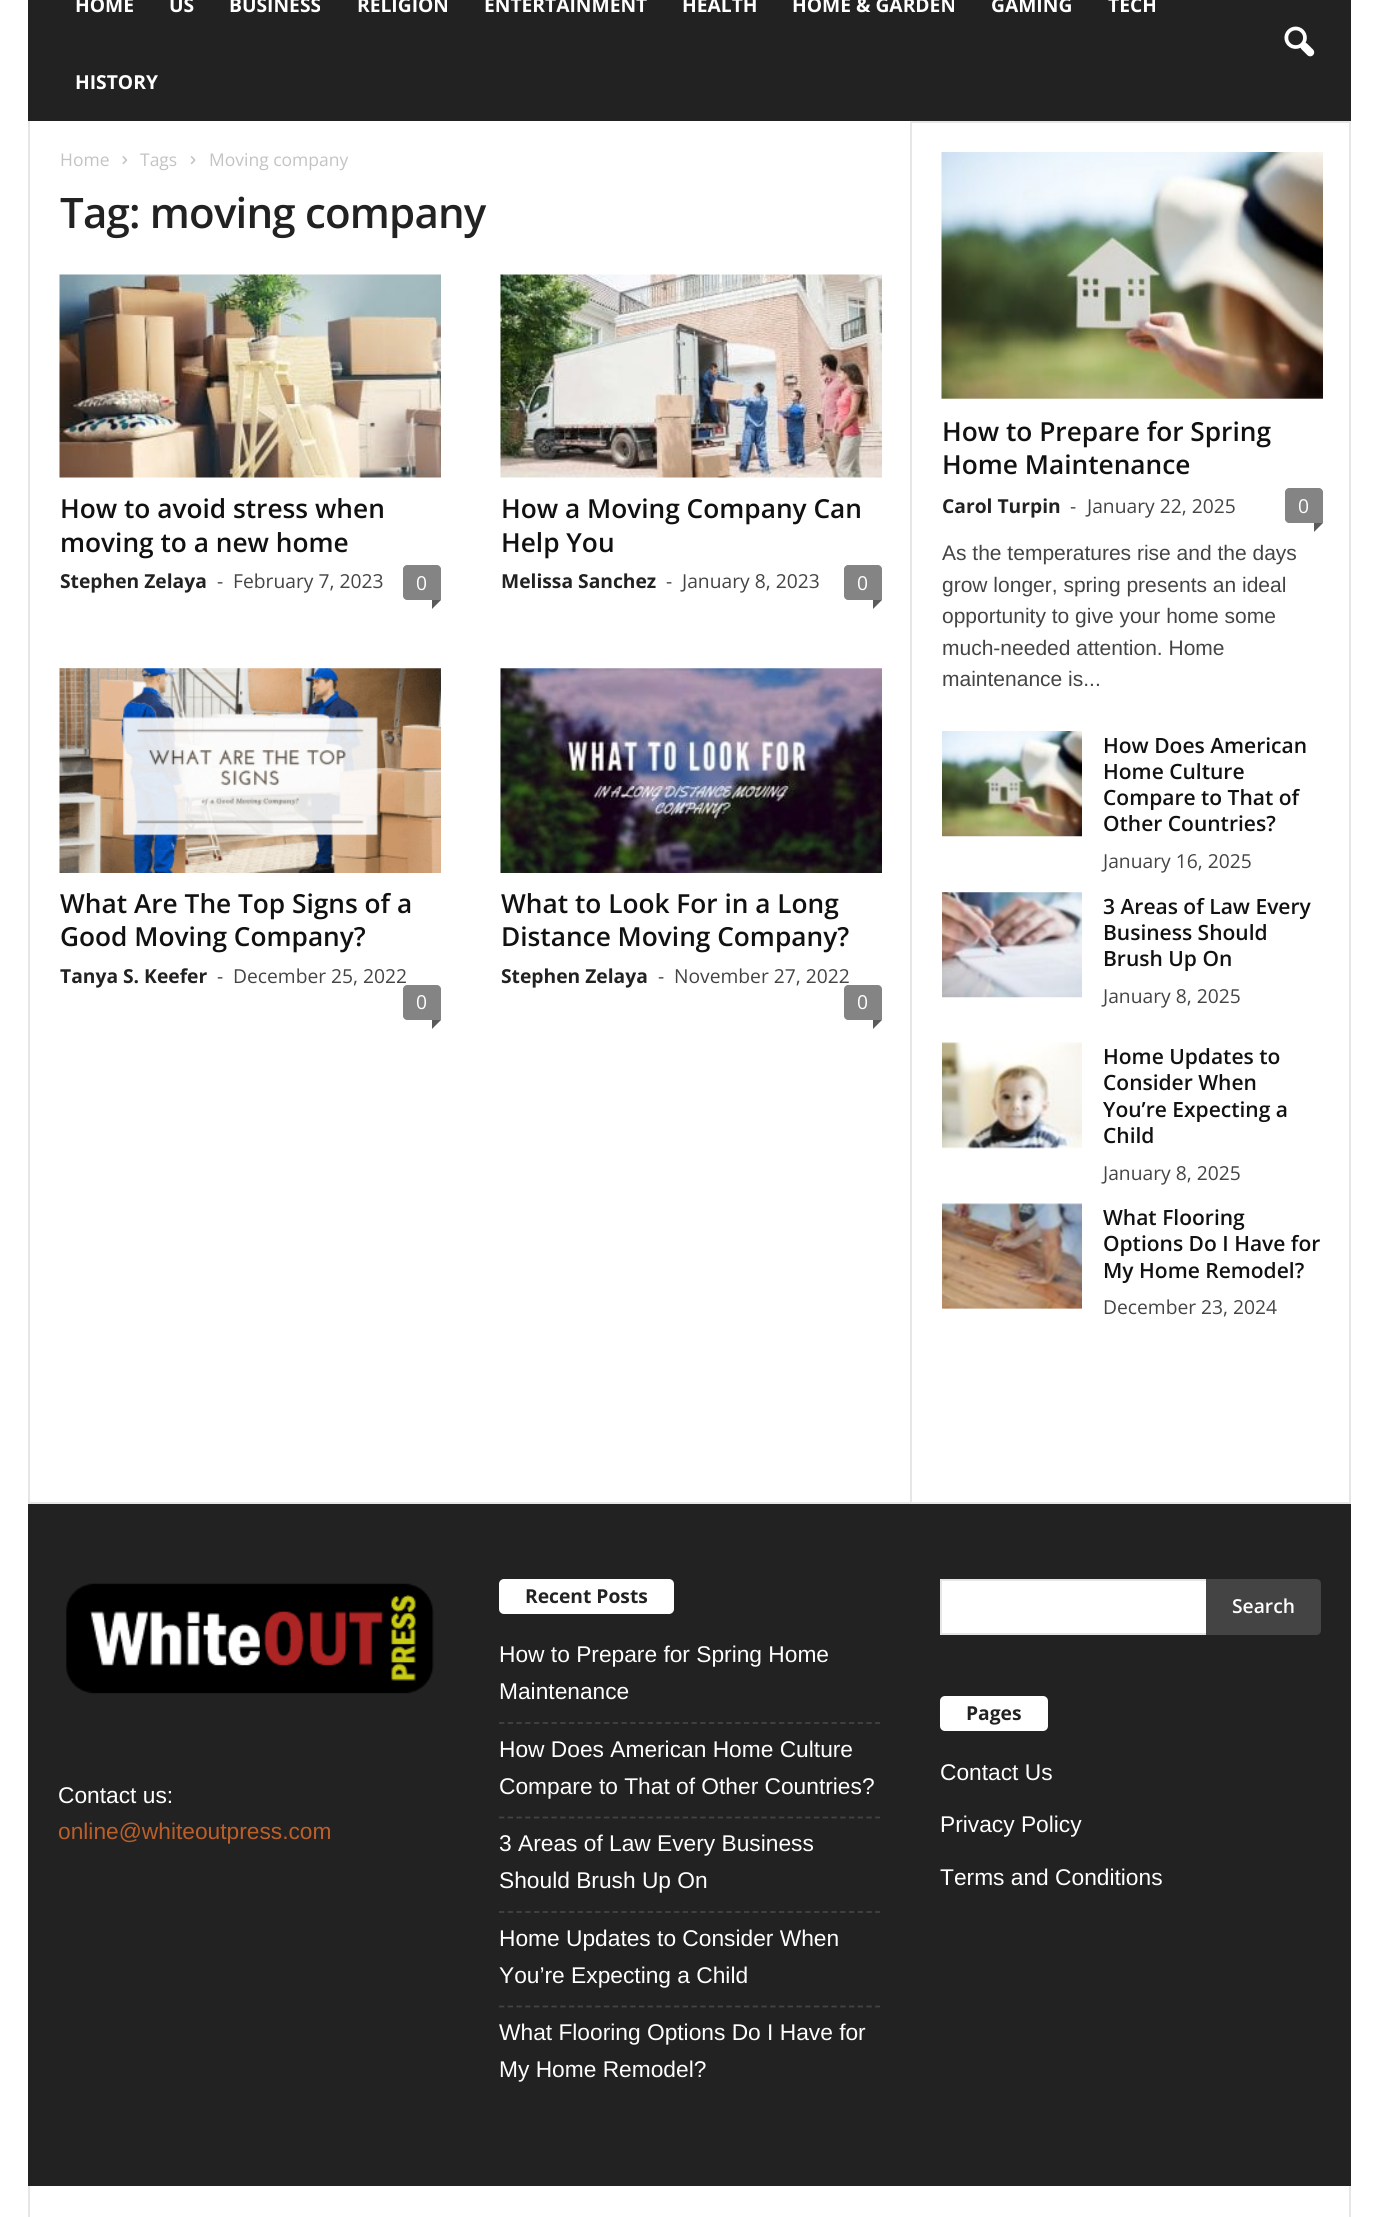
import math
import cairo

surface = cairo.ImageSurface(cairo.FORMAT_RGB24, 1378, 2217)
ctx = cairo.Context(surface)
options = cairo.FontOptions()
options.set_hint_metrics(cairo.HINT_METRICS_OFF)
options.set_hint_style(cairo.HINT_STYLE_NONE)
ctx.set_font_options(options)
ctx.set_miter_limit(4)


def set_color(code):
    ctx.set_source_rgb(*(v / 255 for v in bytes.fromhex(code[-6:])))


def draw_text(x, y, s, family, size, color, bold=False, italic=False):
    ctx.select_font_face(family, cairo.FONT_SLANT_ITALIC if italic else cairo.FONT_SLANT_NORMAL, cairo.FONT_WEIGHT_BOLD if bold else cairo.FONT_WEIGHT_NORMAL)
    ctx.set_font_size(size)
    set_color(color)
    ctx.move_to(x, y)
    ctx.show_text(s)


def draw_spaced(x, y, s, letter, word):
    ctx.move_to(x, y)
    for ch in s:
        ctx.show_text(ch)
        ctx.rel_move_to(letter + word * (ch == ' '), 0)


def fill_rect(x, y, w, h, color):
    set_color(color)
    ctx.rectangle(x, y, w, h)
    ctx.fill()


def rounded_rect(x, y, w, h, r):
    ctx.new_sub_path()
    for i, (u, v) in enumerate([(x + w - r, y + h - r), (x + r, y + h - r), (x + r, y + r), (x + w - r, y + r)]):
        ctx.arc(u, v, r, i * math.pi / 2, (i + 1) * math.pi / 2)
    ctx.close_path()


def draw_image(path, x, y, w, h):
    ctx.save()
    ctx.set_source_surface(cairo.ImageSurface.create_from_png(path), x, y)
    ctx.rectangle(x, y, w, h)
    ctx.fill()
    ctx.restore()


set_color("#ffffff")
ctx.paint()
fill_rect(28, 0, 1323, 121, "#222222")
draw_text(75, 12, "HOME", "Open Sans", 19.25, "#ffffff", bold=True)
draw_text(169, 12, "US", "Open Sans", 19.25, "#ffffff", bold=True)
draw_text(229, 12, "BUSINESS", "Open Sans", 19.25, "#ffffff", bold=True)
draw_text(357, 12, "RELIGION", "Open Sans", 19.25, "#ffffff", bold=True)
draw_text(484, 12, "ENTERTAINMENT", "Open Sans", 19.25, "#ffffff", bold=True)
draw_text(682, 12, "HEALTH", "Open Sans", 19.25, "#ffffff", bold=True)
draw_text(792, 12, "HOME & GARDEN", "Open Sans", 19.25, "#ffffff", bold=True)
draw_text(991, 12, "GAMING", "Open Sans", 19.25, "#ffffff", bold=True)
draw_text(1108, 12, "TECH", "Open Sans", 19.25, "#ffffff", bold=True)
draw_text(75, 89, "HISTORY", "Open Sans", 19.25, "#ffffff", bold=True)
draw_image("assets/img1.png", 1284, 26, 31, 31)
fill_rect(28, 1502, 1323, 2, "#e6e6e6")
fill_rect(28, 121, 2, 1381, "#e6e6e6")
draw_text(60, 166, "Home", "Open Sans", 17.5, "#c3c3c3")
draw_image("assets/img2.png", 122, 156, 6, 9)
draw_text(140, 166, "Tags", "Open Sans", 17.5, "#c3c3c3")
draw_image("assets/img3.png", 190, 156, 6, 9)
draw_text(209, 166, "Moving company", "Open Sans", 17.5, "#c3c3c3")
ctx.select_font_face("Open Sans SemiBold")
ctx.set_font_size(42)
set_color("#222222")
draw_spaced(60, 228, "Tag: moving company", -0.8, 0)
draw_image("assets/img4.png", 59, 274, 382, 204)
draw_text(60, 518, "How to avoid stress when", "Open Sans SemiBold", 26.25, "#111111")
draw_text(60, 552, "moving to a new home", "Open Sans SemiBold", 26.25, "#111111")
draw_text(60, 588, "Stephen Zelaya", "Open Sans", 19.25, "#222222", bold=True)
draw_text(217, 588, "-", "Open Sans", 19.25, "#444444")
draw_text(233, 588, "February 7, 2023", "Open Sans", 19.25, "#444444")
set_color("#848484")
ctx.new_path()
ctx.move_to(407, 565)
ctx.line_to(437, 565)
ctx.curve_to(439, 565, 441, 567, 441, 569)
ctx.line_to(441, 600)
ctx.line_to(407, 600)
ctx.curve_to(405, 600, 403, 598, 403, 596)
ctx.line_to(403, 569)
ctx.curve_to(403, 567, 405, 565, 407, 565)
ctx.close_path()
ctx.fill()
draw_text(416, 590, "0", "Open Sans", 19.25, "#ffffff")
set_color("#5b5b5b")
ctx.new_path()
ctx.move_to(432, 600)
ctx.line_to(441, 600)
ctx.line_to(432, 609)
ctx.close_path()
ctx.fill()
draw_image("assets/img5.png", 500, 274, 382, 204)
draw_text(501, 518, "How a Moving Company Can", "Open Sans SemiBold", 26.25, "#111111")
draw_text(501, 552, "Help You", "Open Sans SemiBold", 26.25, "#111111")
draw_text(501, 588, "Melissa Sanchez", "Open Sans", 19.25, "#222222", bold=True)
draw_text(666, 588, "-", "Open Sans", 19.25, "#444444")
draw_text(682, 588, "January 8, 2023", "Open Sans", 19.25, "#444444")
set_color("#848484")
ctx.new_path()
ctx.move_to(848, 565)
ctx.line_to(878, 565)
ctx.curve_to(880, 565, 882, 567, 882, 569)
ctx.line_to(882, 600)
ctx.line_to(848, 600)
ctx.curve_to(846, 600, 844, 598, 844, 596)
ctx.line_to(844, 569)
ctx.curve_to(844, 567, 846, 565, 848, 565)
ctx.close_path()
ctx.fill()
draw_text(857, 590, "0", "Open Sans", 19.25, "#ffffff")
set_color("#5b5b5b")
ctx.new_path()
ctx.move_to(873, 600)
ctx.line_to(882, 600)
ctx.line_to(873, 609)
ctx.close_path()
ctx.fill()
draw_image("assets/img6.png", 59, 668, 382, 205)
draw_text(60, 913, "What Are The Top Signs of a", "Open Sans SemiBold", 26.25, "#111111")
draw_text(60, 946, "Good Moving Company?", "Open Sans SemiBold", 26.25, "#111111")
draw_text(60, 983, "Tanya S. Keefer", "Open Sans", 19.25, "#222222", bold=True)
draw_text(217, 983, "-", "Open Sans", 19.25, "#444444")
draw_text(233, 983, "December 25, 2022", "Open Sans", 19.25, "#444444")
set_color("#848484")
ctx.new_path()
ctx.move_to(407, 985)
ctx.line_to(437, 985)
ctx.curve_to(439, 985, 441, 987, 441, 989)
ctx.line_to(441, 1020)
ctx.line_to(407, 1020)
ctx.curve_to(405, 1020, 403, 1018, 403, 1016)
ctx.line_to(403, 989)
ctx.curve_to(403, 987, 405, 985, 407, 985)
ctx.close_path()
ctx.fill()
draw_text(416, 1009, "0", "Open Sans", 19.25, "#ffffff")
set_color("#5b5b5b")
ctx.new_path()
ctx.move_to(432, 1020)
ctx.line_to(441, 1020)
ctx.line_to(432, 1029)
ctx.close_path()
ctx.fill()
draw_image("assets/img7.png", 500, 668, 382, 205)
draw_text(501, 913, "What to Look For in a Long", "Open Sans SemiBold", 26.25, "#111111")
draw_text(501, 946, "Distance Moving Company?", "Open Sans SemiBold", 26.25, "#111111")
draw_text(501, 983, "Stephen Zelaya", "Open Sans", 19.25, "#222222", bold=True)
draw_text(658, 983, "-", "Open Sans", 19.25, "#444444")
draw_text(674, 983, "November 27, 2022", "Open Sans", 19.25, "#444444")
set_color("#848484")
ctx.new_path()
ctx.move_to(848, 985)
ctx.line_to(878, 985)
ctx.curve_to(880, 985, 882, 987, 882, 989)
ctx.line_to(882, 1020)
ctx.line_to(848, 1020)
ctx.curve_to(846, 1020, 844, 1018, 844, 1016)
ctx.line_to(844, 989)
ctx.curve_to(844, 987, 846, 985, 848, 985)
ctx.close_path()
ctx.fill()
draw_text(857, 1009, "0", "Open Sans", 19.25, "#ffffff")
set_color("#5b5b5b")
ctx.new_path()
ctx.move_to(873, 1020)
ctx.line_to(882, 1020)
ctx.line_to(873, 1029)
ctx.close_path()
ctx.fill()
fill_rect(910, 121, 2, 1381, "#e6e6e6")
fill_rect(1349, 121, 2, 1381, "#e6e6e6")
fill_rect(912, 121, 439, 2, "#e6e6e6")
draw_image("assets/img8.png", 941, 152, 382, 247)
draw_text(942, 441, "How to Prepare for Spring", "Open Sans SemiBold", 26.25, "#111111")
draw_text(942, 474, "Home Maintenance", "Open Sans SemiBold", 26.25, "#111111")
draw_text(942, 513, "Carol Turpin", "Open Sans", 19.25, "#222222", bold=True)
draw_text(1070, 513, "-", "Open Sans", 19.25, "#444444")
draw_text(1087, 513, "January 22, 2025", "Open Sans", 19.25, "#444444")
set_color("#848484")
ctx.new_path()
ctx.move_to(1289, 488)
ctx.line_to(1319, 488)
ctx.curve_to(1321, 488, 1323, 490, 1323, 492)
ctx.line_to(1323, 523)
ctx.line_to(1289, 523)
ctx.curve_to(1287, 523, 1285, 521, 1285, 519)
ctx.line_to(1285, 492)
ctx.curve_to(1285, 490, 1287, 488, 1289, 488)
ctx.close_path()
ctx.fill()
draw_text(1298, 513, "0", "Open Sans", 19.25, "#ffffff")
set_color("#5b5b5b")
ctx.new_path()
ctx.move_to(1314, 523)
ctx.line_to(1323, 523)
ctx.line_to(1314, 532)
ctx.close_path()
ctx.fill()
draw_text(942, 560, "As the temperatures rise and the days", "Liberation Sans", 21, "#444444")
draw_text(942, 592, "grow longer, spring presents an ideal", "Liberation Sans", 21, "#444444")
draw_text(942, 623, "opportunity to give your home some", "Liberation Sans", 21, "#444444")
draw_text(942, 655, "much-needed attention. Home", "Liberation Sans", 21, "#444444")
draw_text(942, 686, "maintenance is...", "Liberation Sans", 21, "#444444")
draw_image("assets/img9.png", 942, 731, 140, 106)
draw_text(1103, 753, "How Does American", "Open Sans SemiBold", 21, "#111111")
draw_text(1103, 779, "Home Culture", "Open Sans SemiBold", 21, "#111111")
draw_text(1103, 805, "Compare to That of", "Open Sans SemiBold", 21, "#111111")
draw_text(1103, 831, "Other Countries?", "Open Sans SemiBold", 21, "#111111")
draw_text(1103, 868, "January 16, 2025", "Open Sans", 19.25, "#444444")
draw_image("assets/img10.png", 942, 892, 140, 106)
draw_text(1103, 914, "3 Areas of Law Every", "Open Sans SemiBold", 21, "#111111")
draw_text(1103, 940, "Business Should", "Open Sans SemiBold", 21, "#111111")
draw_text(1103, 966, "Brush Up On", "Open Sans SemiBold", 21, "#111111")
draw_text(1103, 1003, "January 8, 2025", "Open Sans", 19.25, "#444444")
draw_image("assets/img11.png", 942, 1042, 140, 107)
draw_text(1103, 1064, "Home Updates to", "Open Sans SemiBold", 21, "#111111")
draw_text(1103, 1090, "Consider When", "Open Sans SemiBold", 21, "#111111")
draw_text(1103, 1117, "You’re Expecting a", "Open Sans SemiBold", 21, "#111111")
draw_text(1103, 1143, "Child", "Open Sans SemiBold", 21, "#111111")
draw_text(1103, 1180, "January 8, 2025", "Open Sans", 19.25, "#444444")
draw_image("assets/img12.png", 942, 1203, 140, 106)
draw_text(1103, 1225, "What Flooring", "Open Sans SemiBold", 21, "#111111")
draw_text(1103, 1251, "Options Do I Have for", "Open Sans SemiBold", 21, "#111111")
draw_text(1103, 1278, "My Home Remodel?", "Open Sans SemiBold", 21, "#111111")
draw_text(1103, 1314, "December 23, 2024", "Open Sans", 19.25, "#444444")
fill_rect(28, 1504, 1323, 682, "#222222")
draw_image("assets/img13.png", 66, 1583, 368, 111)
draw_text(58, 1803, "Contact us:", "Liberation Sans", 22.75, "#ffffff")
draw_text(58, 1839, "online@whiteoutpress.com", "Liberation Sans", 22.75, "#ba5f2a")
set_color("#ffffff")
rounded_rect(499, 1579, 175, 35, 5)
ctx.fill()
draw_text(525, 1603, "Recent Posts", "Open Sans", 19.25, "#222222", bold=True)
ctx.new_path()
ctx.move_to(499, 1723)
ctx.line_to(880, 1723)
set_color("#434343")
ctx.set_line_width(1.8)
ctx.set_dash([5.25, 3.5])
ctx.stroke()
draw_text(499, 1662, "How to Prepare for Spring Home", "Liberation Sans", 22.75, "#ffffff")
draw_text(499, 1699, "Maintenance", "Liberation Sans", 22.75, "#ffffff")
ctx.new_path()
ctx.move_to(499, 1817.5)
ctx.line_to(880, 1817.5)
set_color("#434343")
ctx.stroke()
draw_text(499, 1757, "How Does American Home Culture", "Liberation Sans", 22.75, "#ffffff")
draw_text(499, 1794, "Compare to That of Other Countries?", "Liberation Sans", 22.75, "#ffffff")
ctx.new_path()
ctx.move_to(499, 1912)
ctx.line_to(880, 1912)
set_color("#434343")
ctx.stroke()
draw_text(499, 1851, "3 Areas of Law Every Business", "Liberation Sans", 22.75, "#ffffff")
draw_text(499, 1888, "Should Brush Up On", "Liberation Sans", 22.75, "#ffffff")
ctx.new_path()
ctx.move_to(499, 2006.5)
ctx.line_to(880, 2006.5)
set_color("#434343")
ctx.stroke()
draw_text(499, 1946, "Home Updates to Consider When", "Liberation Sans", 22.75, "#ffffff")
draw_text(499, 1983, "You’re Expecting a Child", "Liberation Sans", 22.75, "#ffffff")
draw_text(499, 2040, "What Flooring Options Do I Have for", "Liberation Sans", 22.75, "#ffffff")
draw_text(499, 2077, "My Home Remodel?", "Liberation Sans", 22.75, "#ffffff")
fill_rect(942, 1581, 264, 52, "#ffffff")
fill_rect(940, 1579, 266, 2, "#e6e6e6")
fill_rect(940, 1633, 266, 2, "#e6e6e6")
fill_rect(940, 1579, 2, 56, "#e6e6e6")
set_color("#444444")
ctx.new_path()
ctx.move_to(1206, 1579)
ctx.line_to(1316, 1579)
ctx.curve_to(1319, 1579, 1321, 1581, 1321, 1584)
ctx.line_to(1321, 1630)
ctx.curve_to(1321, 1633, 1319, 1635, 1316, 1635)
ctx.line_to(1206, 1635)
ctx.close_path()
ctx.fill()
draw_text(1232, 1613, "Search", "Open Sans SemiBold", 19.25, "#ffffff")
rounded_rect(940, 1696, 108, 35, 5)
ctx.fill()
draw_text(966, 1720, "Pages", "Open Sans", 19.25, "#222222", bold=True)
draw_text(940, 1780, "Contact Us", "Liberation Sans", 22.75, "#ffffff")
draw_text(940, 1832, "Privacy Policy", "Liberation Sans", 22.75, "#ffffff")
draw_text(940, 1885, "Terms and Conditions", "Liberation Sans", 22.75, "#ffffff")
fill_rect(28, 2186, 2, 31, "#e6e6e6")
fill_rect(1349, 2186, 2, 31, "#e6e6e6")
surface.write_to_png("output.png")
